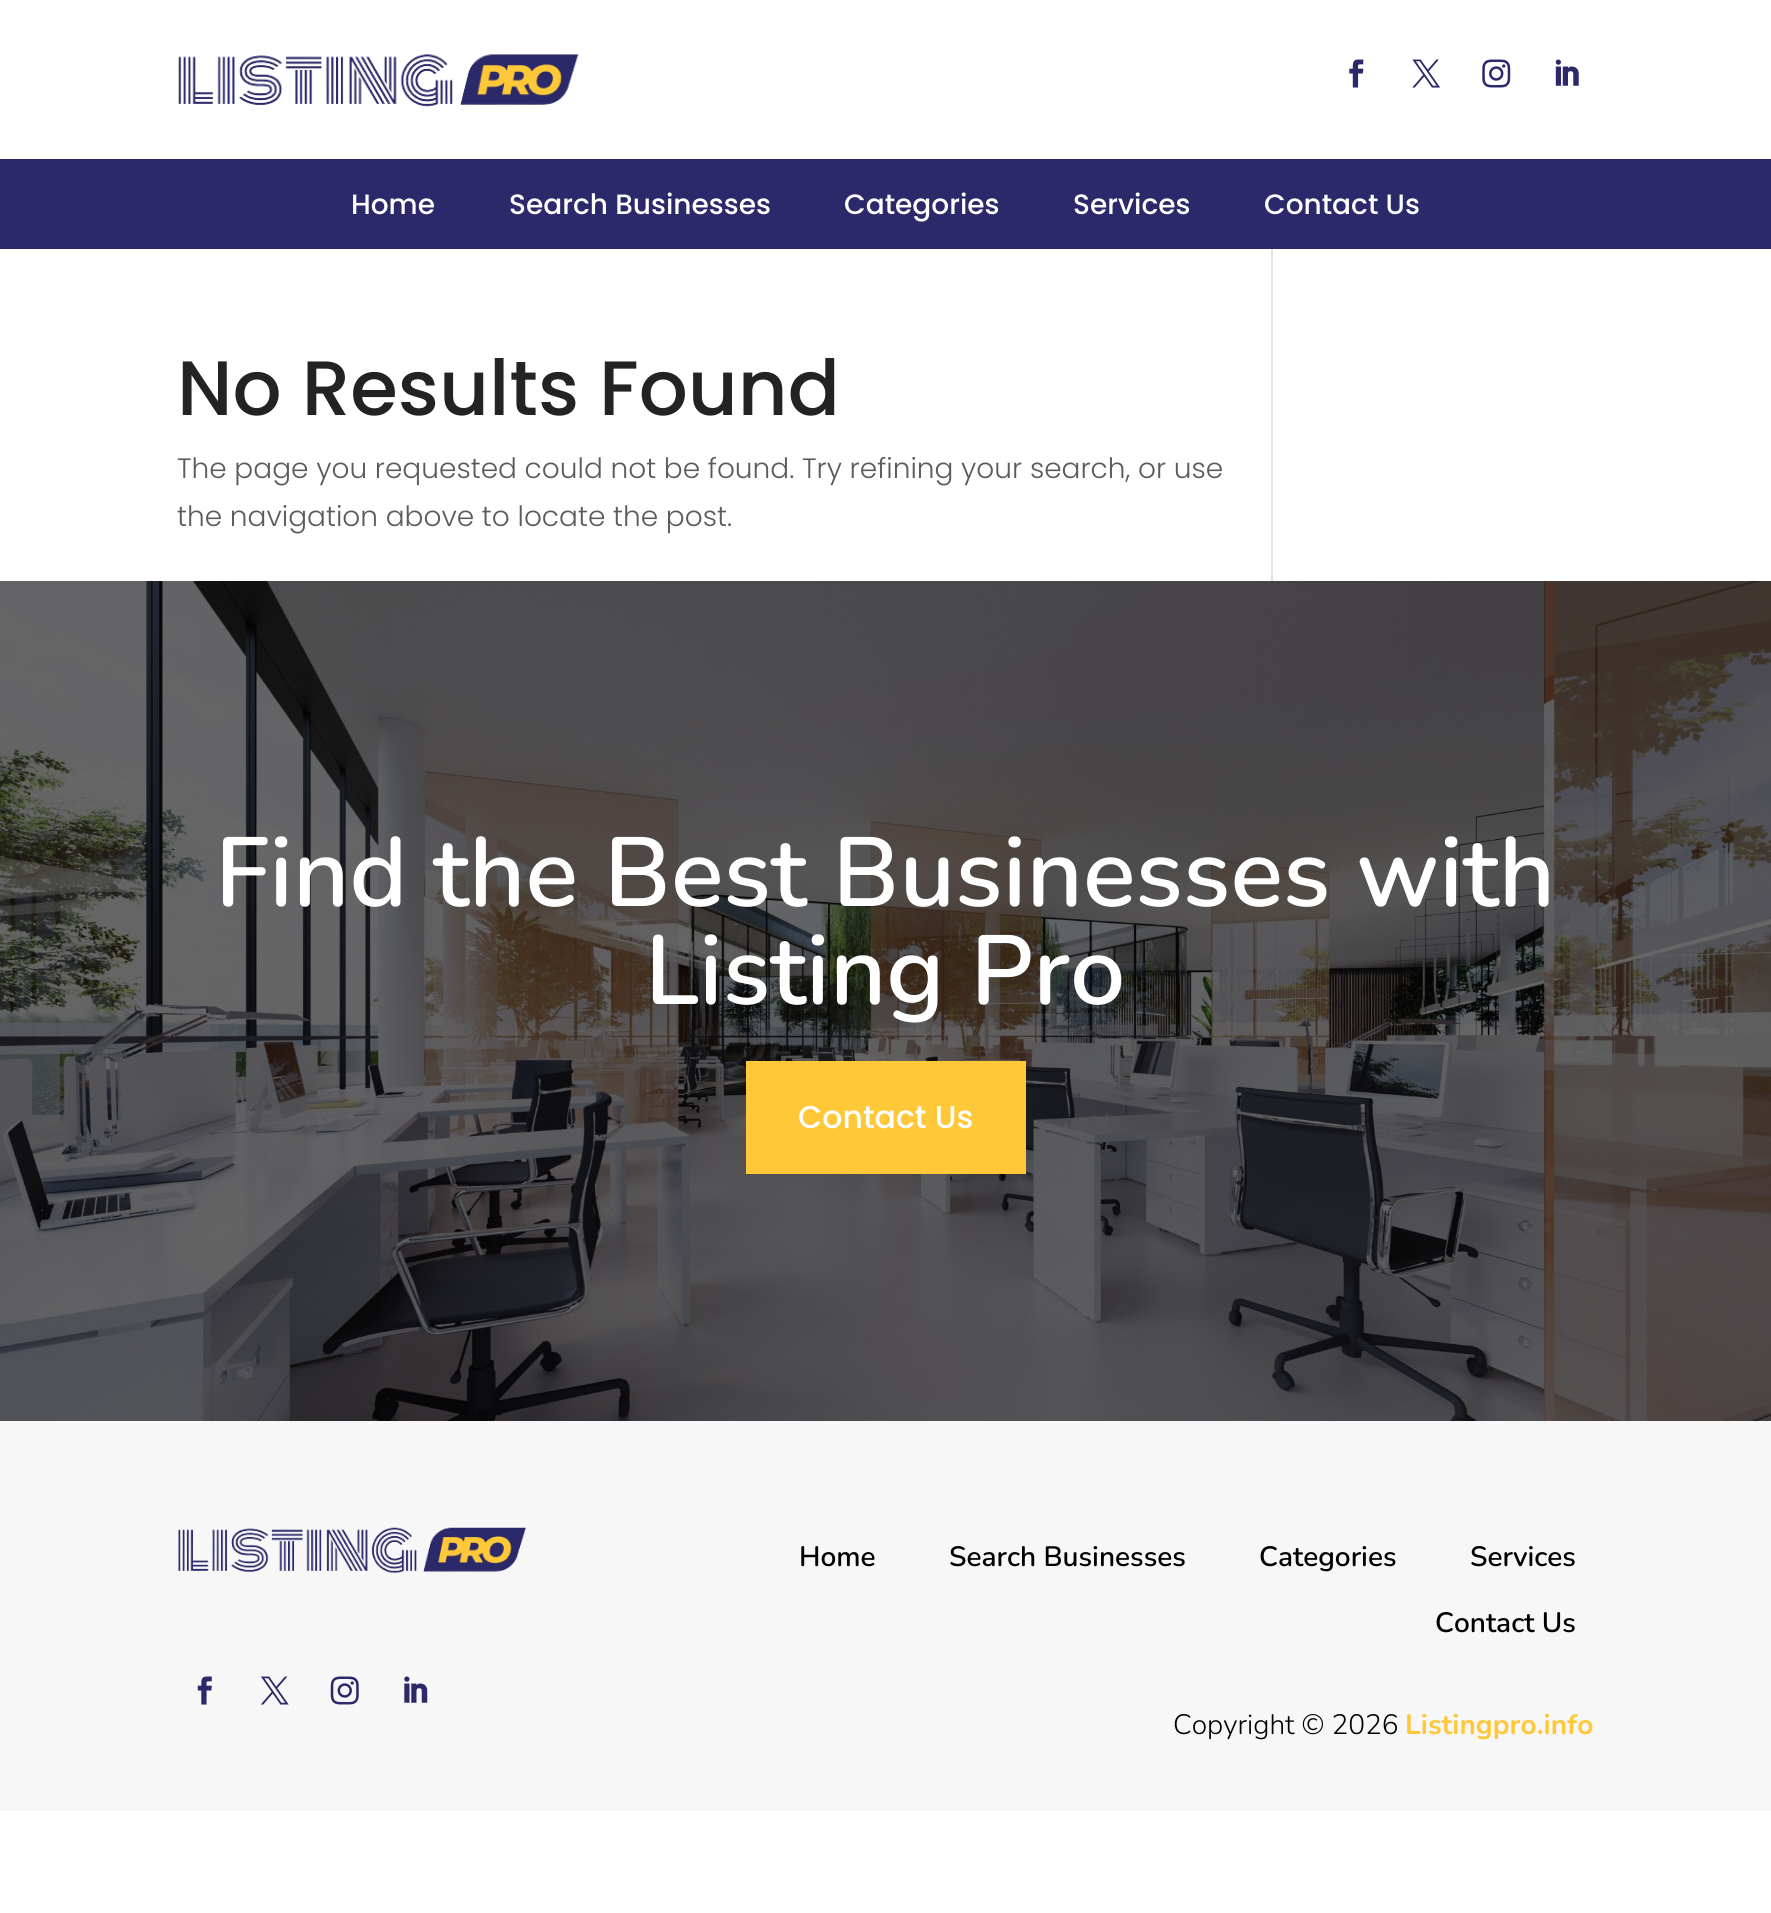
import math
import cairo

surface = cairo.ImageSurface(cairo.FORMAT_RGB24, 1771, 1913)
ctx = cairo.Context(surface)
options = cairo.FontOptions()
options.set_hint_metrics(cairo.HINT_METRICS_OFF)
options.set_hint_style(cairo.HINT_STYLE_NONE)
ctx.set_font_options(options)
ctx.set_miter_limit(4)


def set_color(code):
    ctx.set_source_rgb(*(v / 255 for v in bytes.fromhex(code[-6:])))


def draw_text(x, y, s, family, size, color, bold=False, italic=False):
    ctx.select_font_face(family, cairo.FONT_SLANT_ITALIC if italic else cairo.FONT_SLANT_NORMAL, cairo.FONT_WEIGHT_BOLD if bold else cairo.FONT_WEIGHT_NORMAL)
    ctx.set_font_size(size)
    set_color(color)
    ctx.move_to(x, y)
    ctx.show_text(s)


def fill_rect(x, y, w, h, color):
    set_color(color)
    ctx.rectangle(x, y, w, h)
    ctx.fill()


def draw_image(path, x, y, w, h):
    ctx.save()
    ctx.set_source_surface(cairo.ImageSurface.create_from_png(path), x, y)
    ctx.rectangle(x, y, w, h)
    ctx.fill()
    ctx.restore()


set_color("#ffffff")
ctx.paint()
draw_image("assets/img1.png", 178, 54, 401, 53)
draw_image("assets/img2.png", 1349, 59, 15, 29)
draw_image("assets/img3.png", 1412, 59, 29, 29)
draw_image("assets/img4.png", 1482, 59, 29, 29)
draw_image("assets/img5.png", 1555, 59, 24, 27)
fill_rect(0, 159, 1771, 90, "#2b2969")
draw_text(351, 214, "Home", "Poppins Medium", 28, "#ffffff")
draw_text(509, 214, "Search Businesses", "Poppins Medium", 28, "#ffffff")
draw_text(844, 214, "Categories", "Poppins Medium", 28, "#ffffff")
draw_text(1073, 214, "Services", "Poppins Medium", 28, "#ffffff")
draw_text(1264, 214, "Contact Us", "Poppins Medium", 28, "#ffffff")
draw_text(177, 415, "No Results Found", "Poppins Medium", 77, "#232323")
draw_text(177, 478, "The page you requested could not be found. Try refining your search, or use", "Poppins Light", 28, "#5b5b5b")
draw_text(177, 526, "the navigation above to locate the post.", "Poppins Light", 28, "#5b5b5b")
fill_rect(1271, 249, 2, 332, "#e2e2e2")
draw_image("assets/img6.png", 0, 581, 1771, 840)
draw_text(215, 906, "Find the Best Businesses with", "Nunito SemiBold", 98, "#ffffff")
draw_text(645, 1004, "Listing Pro", "Nunito SemiBold", 98, "#ffffff")
fill_rect(746, 1061, 280, 113, "#ffc839")
draw_text(798, 1128, "Contact Us", "Poppins Medium", 31.5, "#ffffff")
fill_rect(0, 1421, 1771, 390, "#f7f7f7")
draw_image("assets/img7.png", 178, 1527, 348, 47)
draw_image("assets/img8.png", 197, 1676, 15, 29)
draw_image("assets/img9.png", 260, 1676, 29, 29)
draw_image("assets/img10.png", 330, 1676, 29, 29)
draw_image("assets/img11.png", 404, 1676, 24, 27)
draw_text(799, 1566, "Home", "Nunito SemiBold", 28, "#000000")
draw_text(949, 1566, "Search Businesses", "Nunito SemiBold", 28, "#000000")
draw_text(1259, 1566, "Categories", "Nunito SemiBold", 28, "#000000")
draw_text(1470, 1566, "Services", "Nunito SemiBold", 28, "#000000")
draw_text(1435, 1632, "Contact Us", "Nunito SemiBold", 28, "#000000")
draw_text(1173, 1734, "Copyright © 2026", "Nunito Light", 28, "#000000")
draw_text(1405, 1734, "Listingpro.info", "Nunito", 28, "#ffc839", bold=True)
surface.write_to_png("output.png")
